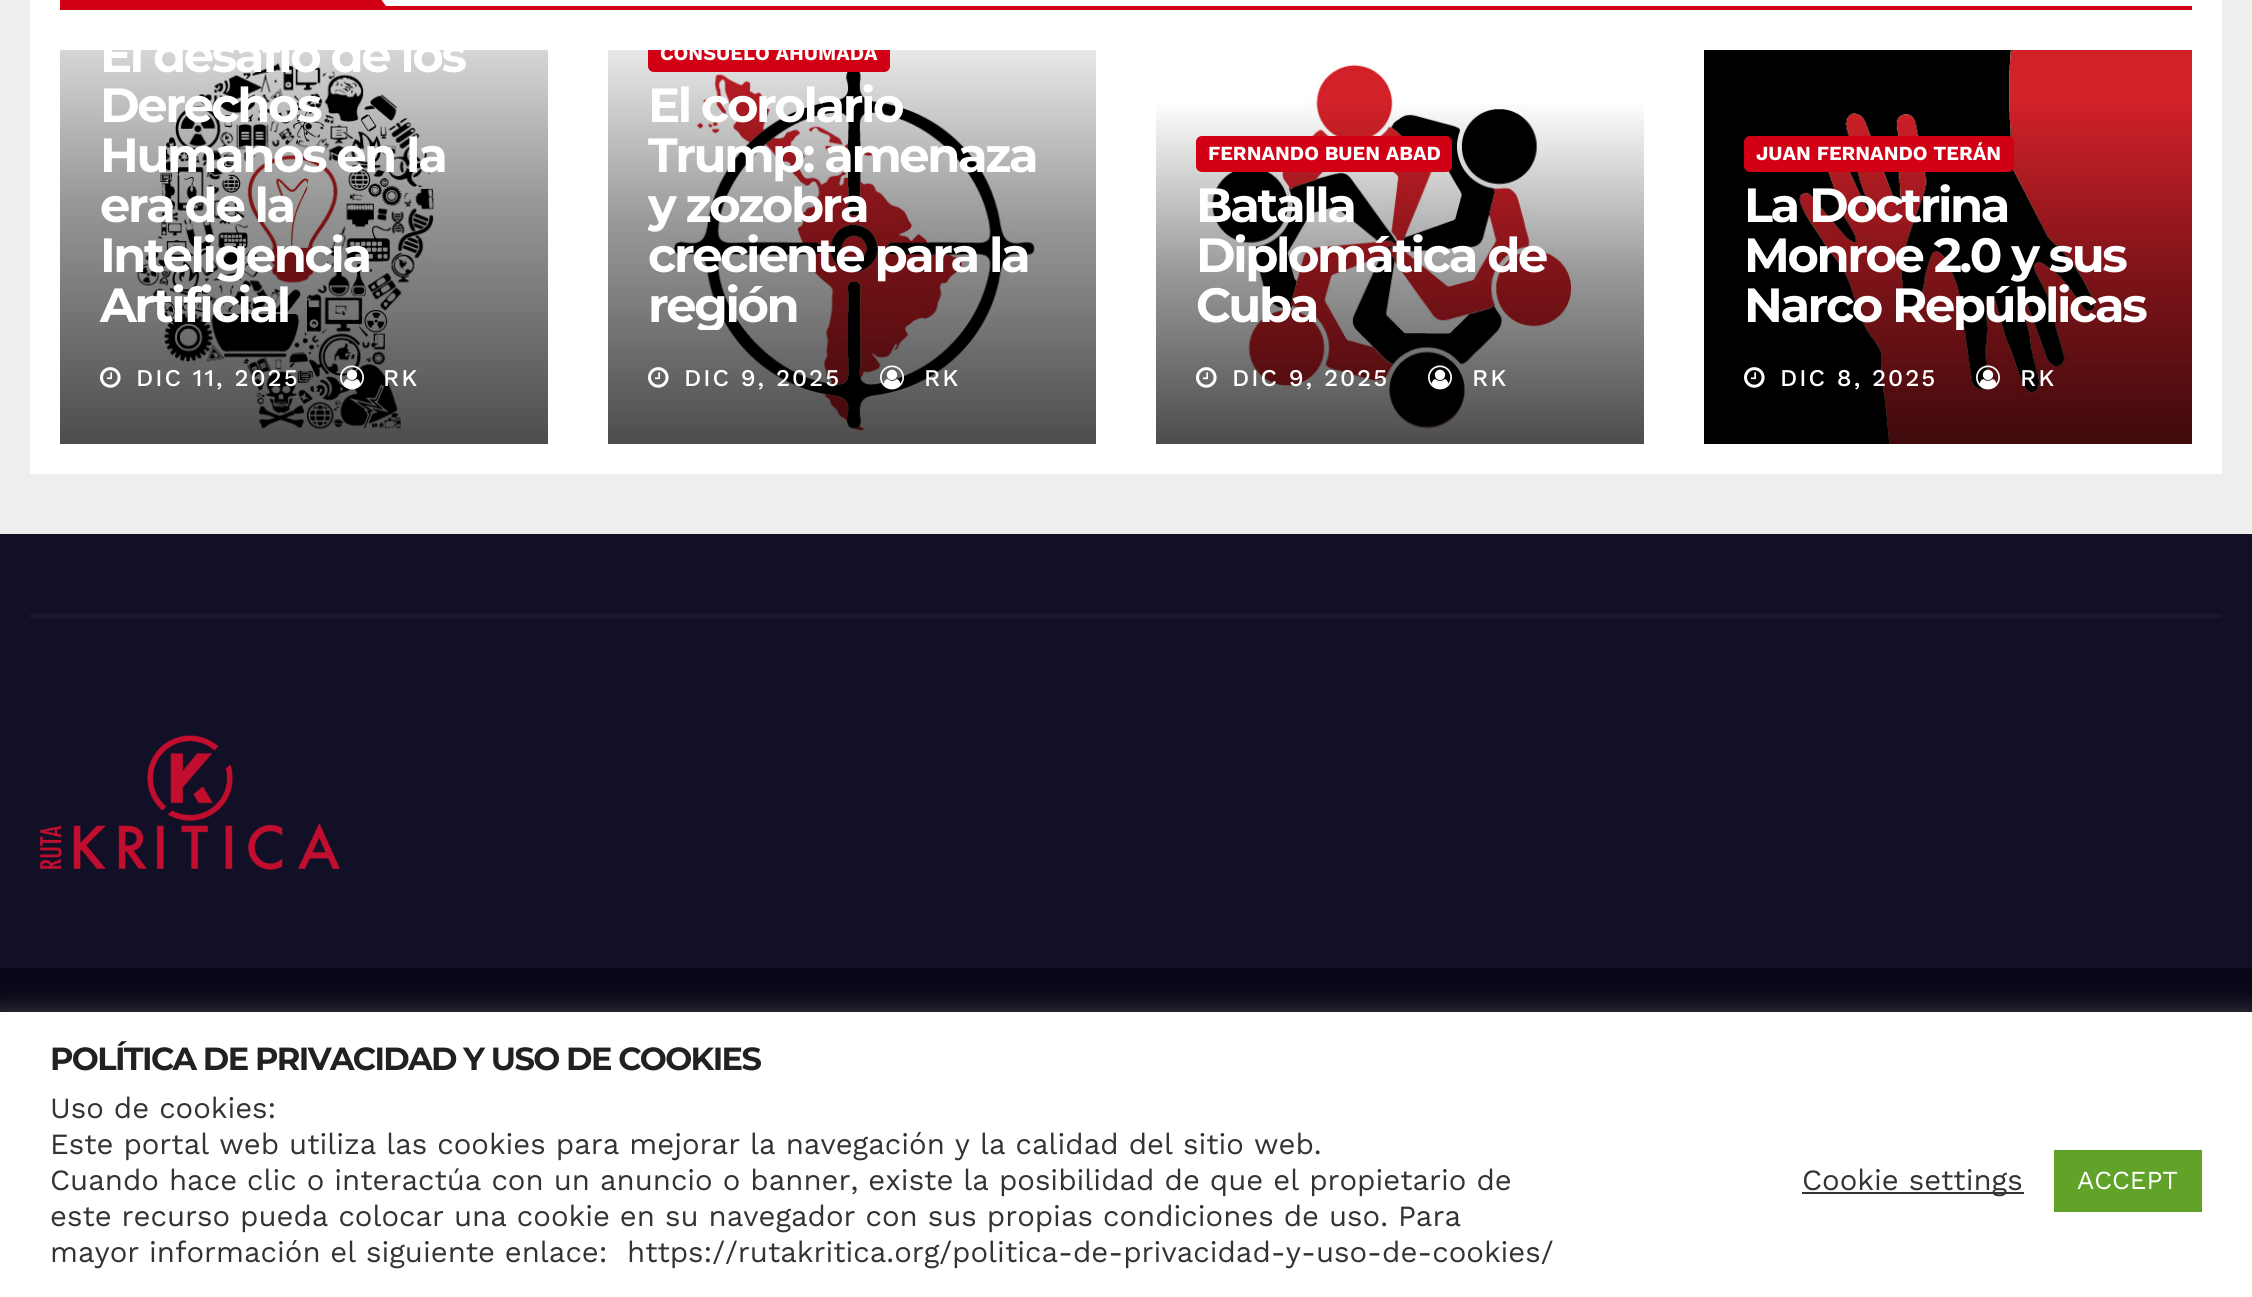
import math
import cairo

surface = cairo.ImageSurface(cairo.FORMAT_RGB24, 2252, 1297)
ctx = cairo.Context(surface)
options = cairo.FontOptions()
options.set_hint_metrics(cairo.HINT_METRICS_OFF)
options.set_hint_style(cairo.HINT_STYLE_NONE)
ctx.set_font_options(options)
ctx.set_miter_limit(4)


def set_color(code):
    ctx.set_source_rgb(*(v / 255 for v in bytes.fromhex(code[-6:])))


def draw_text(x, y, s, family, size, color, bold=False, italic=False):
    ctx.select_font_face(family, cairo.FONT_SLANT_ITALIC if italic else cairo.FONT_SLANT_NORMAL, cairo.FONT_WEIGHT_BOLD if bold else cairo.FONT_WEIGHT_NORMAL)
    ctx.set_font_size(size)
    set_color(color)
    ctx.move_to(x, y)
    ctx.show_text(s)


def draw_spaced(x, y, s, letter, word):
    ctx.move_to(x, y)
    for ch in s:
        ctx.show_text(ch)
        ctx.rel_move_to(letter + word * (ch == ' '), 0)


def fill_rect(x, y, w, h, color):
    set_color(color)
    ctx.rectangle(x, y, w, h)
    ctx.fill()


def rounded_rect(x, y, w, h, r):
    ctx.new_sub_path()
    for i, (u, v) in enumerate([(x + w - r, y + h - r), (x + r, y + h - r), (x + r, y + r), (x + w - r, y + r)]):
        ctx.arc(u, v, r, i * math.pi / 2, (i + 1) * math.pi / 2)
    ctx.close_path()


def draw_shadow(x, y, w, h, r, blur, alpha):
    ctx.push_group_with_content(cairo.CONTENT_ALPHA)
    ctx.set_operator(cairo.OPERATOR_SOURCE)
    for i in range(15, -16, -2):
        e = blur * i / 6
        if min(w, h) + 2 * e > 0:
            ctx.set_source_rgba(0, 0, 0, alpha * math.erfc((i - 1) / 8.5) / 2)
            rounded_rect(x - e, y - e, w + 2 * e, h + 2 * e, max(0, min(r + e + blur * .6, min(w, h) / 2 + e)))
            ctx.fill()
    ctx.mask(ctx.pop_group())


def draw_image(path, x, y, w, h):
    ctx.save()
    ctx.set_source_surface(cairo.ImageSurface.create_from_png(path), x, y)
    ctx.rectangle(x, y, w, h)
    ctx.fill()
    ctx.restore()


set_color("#eeeeee")
ctx.paint()
fill_rect(30, 0, 2192, 474, "#ffffff")
fill_rect(60, 6, 2132, 4, "#d10014")
fill_rect(60, 0, 266, 6, "#d10014")
ctx.new_path()
ctx.move_to(326, 6)
ctx.line_to(326, -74)
ctx.line_to(386, 6)
ctx.close_path()
ctx.fill()
draw_image("assets/img1.png", 60, 50, 488, 394)
ctx.save()
ctx.rectangle(100, 50, 408, 280)
ctx.clip()
ctx.select_font_face("Montserrat", cairo.FONT_SLANT_NORMAL, cairo.FONT_WEIGHT_BOLD)
ctx.set_font_size(48)
set_color("#ffffff")
draw_spaced(100, 72, "El desafío de los", -2.4, 0)
ctx.restore()
ctx.select_font_face("Montserrat", cairo.FONT_SLANT_NORMAL, cairo.FONT_WEIGHT_BOLD)
ctx.set_font_size(48)
set_color("#ffffff")
draw_spaced(100, 122, "Derechos", -2.4, 0)
draw_spaced(100, 172, "Humanos en la", -2.4, 0)
draw_spaced(100, 222, "era de la", -2.4, 0)
draw_spaced(100, 272, "Inteligencia", -2.4, 0)
draw_spaced(100, 322, "Artificial", -2.4, 0)
draw_image("assets/img2.png", 100, 367, 21, 21)
ctx.select_font_face("Work Sans Medium")
ctx.set_font_size(24)
draw_spaced(136, 386, "DIC 11, 2025", 2, 0)
draw_image("assets/img3.png", 340, 365, 24, 25)
draw_spaced(383, 386, "RK", 2, 0)
draw_image("assets/img4.png", 608, 50, 488, 394)
set_color("#d10014")
ctx.new_path()
ctx.move_to(648, 50)
ctx.line_to(890, 50)
ctx.line_to(890, 66)
ctx.curve_to(890, 69.5, 887.5, 72, 884, 72)
ctx.line_to(654, 72)
ctx.curve_to(650.5, 72, 648, 69.5, 648, 66)
ctx.close_path()
ctx.fill()
ctx.save()
ctx.rectangle(608, 50, 488, 394)
ctx.clip()
draw_text(660, 60, "CONSUELO AHUMADA", "Work Sans", 20, "#ffffff", bold=True)
ctx.restore()
ctx.select_font_face("Montserrat", cairo.FONT_SLANT_NORMAL, cairo.FONT_WEIGHT_BOLD)
ctx.set_font_size(48)
set_color("#ffffff")
draw_spaced(648, 122, "El corolario", -2.4, 0)
draw_spaced(648, 172, "Trump: amenaza", -2.4, 0)
ctx.save()
ctx.rectangle(648, 80, 408, 250)
ctx.clip()
draw_spaced(648, 222, "y zozobra", -2.4, 0)
ctx.restore()
draw_spaced(648, 272, "creciente para la", -2.4, 0)
ctx.save()
ctx.rectangle(648, 80, 408, 250)
ctx.clip()
draw_spaced(648, 322, "región", -2.4, 0)
ctx.restore()
draw_image("assets/img5.png", 648, 367, 21, 21)
ctx.select_font_face("Work Sans Medium")
ctx.set_font_size(24)
draw_spaced(684, 386, "DIC 9, 2025", 2, 0)
draw_image("assets/img6.png", 880, 365, 24, 25)
draw_spaced(924, 386, "RK", 2, 0)
draw_image("assets/img7.png", 1156, 50, 488, 394)
set_color("#d10014")
rounded_rect(1196, 136, 256, 36, 6)
ctx.fill()
draw_text(1208, 160, "FERNANDO BUEN ABAD", "Work Sans", 20, "#ffffff", bold=True)
ctx.select_font_face("Montserrat", cairo.FONT_SLANT_NORMAL, cairo.FONT_WEIGHT_BOLD)
ctx.set_font_size(48)
draw_spaced(1196, 222, "Batalla", -2.4, 0)
draw_spaced(1196, 272, "Diplomática de", -2.4, 0)
draw_spaced(1196, 322, "Cuba", -2.4, 0)
draw_image("assets/img8.png", 1196, 367, 21, 21)
ctx.select_font_face("Work Sans Medium")
ctx.set_font_size(24)
draw_spaced(1232, 386, "DIC 9, 2025", 2, 0)
draw_image("assets/img9.png", 1428, 365, 24, 25)
draw_spaced(1472, 386, "RK", 2, 0)
draw_image("assets/img10.png", 1704, 50, 488, 394)
set_color("#d10014")
rounded_rect(1744, 136, 270, 36, 6)
ctx.fill()
draw_text(1756, 160, "JUAN FERNANDO TERÁN", "Work Sans", 20, "#ffffff", bold=True)
ctx.select_font_face("Montserrat", cairo.FONT_SLANT_NORMAL, cairo.FONT_WEIGHT_BOLD)
ctx.set_font_size(48)
draw_spaced(1744, 222, "La Doctrina", -2.4, 0)
draw_spaced(1744, 272, "Monroe 2.0 y sus", -2.4, 0)
ctx.save()
ctx.rectangle(1744, 180, 408, 150)
ctx.clip()
draw_spaced(1744, 322, "Narco Repúblicas", -2.4, 0)
ctx.restore()
draw_image("assets/img11.png", 1744, 367, 21, 21)
ctx.select_font_face("Work Sans Medium")
ctx.set_font_size(24)
draw_spaced(1780, 386, "DIC 8, 2025", 2, 0)
draw_image("assets/img12.png", 1976, 365, 24, 25)
draw_spaced(2020, 386, "RK", 2, 0)
fill_rect(0, 534, 2252, 434, "#121026")
fill_rect(30, 614, 2192, 4, "#1a182e")
draw_image("assets/img13.png", 39, 735, 302, 135)
fill_rect(0, 968, 2252, 44, "#090818")
set_color("#acabab")
draw_shadow(0, 1010, 2252, 286, 0, 10, 0.3)
fill_rect(0, 1012, 2252, 285, "#ffffff")
ctx.select_font_face("Montserrat", cairo.FONT_SLANT_NORMAL, cairo.FONT_WEIGHT_BOLD)
ctx.set_font_size(32)
set_color("#212121")
draw_spaced(50, 1070, "POLÍTICA DE PRIVACIDAD Y USO DE COOKIES", -1.6, 0)
draw_text(50, 1118, "Uso de cookies:", "Work Sans", 29.33, "#333333")
draw_text(50, 1154, "Este portal web utiliza las cookies para mejorar la navegación y la calidad del sitio web.", "Work Sans", 29.33, "#333333")
draw_text(50, 1190, "Cuando hace clic o interactúa con un anuncio o banner, existe la posibilidad de que el propietario de", "Work Sans", 29.33, "#333333")
draw_text(50, 1226, "este recurso pueda colocar una cookie en su navegador con sus propias condiciones de uso. Para", "Work Sans", 29.33, "#333333")
draw_spaced(50, 1262, "mayor información el siguiente enlace:  https://rutakritica.org/politica-de-privacidad-y-uso-de-cookies/", 0, -0.25)
fill_rect(1802, 1192, 222, 2, "#333333")
draw_text(1802, 1190, "Cookie settings", "Work Sans", 29.33, "#333333")
fill_rect(2054, 1150, 148, 62, "#61a229")
draw_text(2077, 1189, "ACCEPT", "Work Sans", 26, "#ffffff")
surface.write_to_png("output.png")
